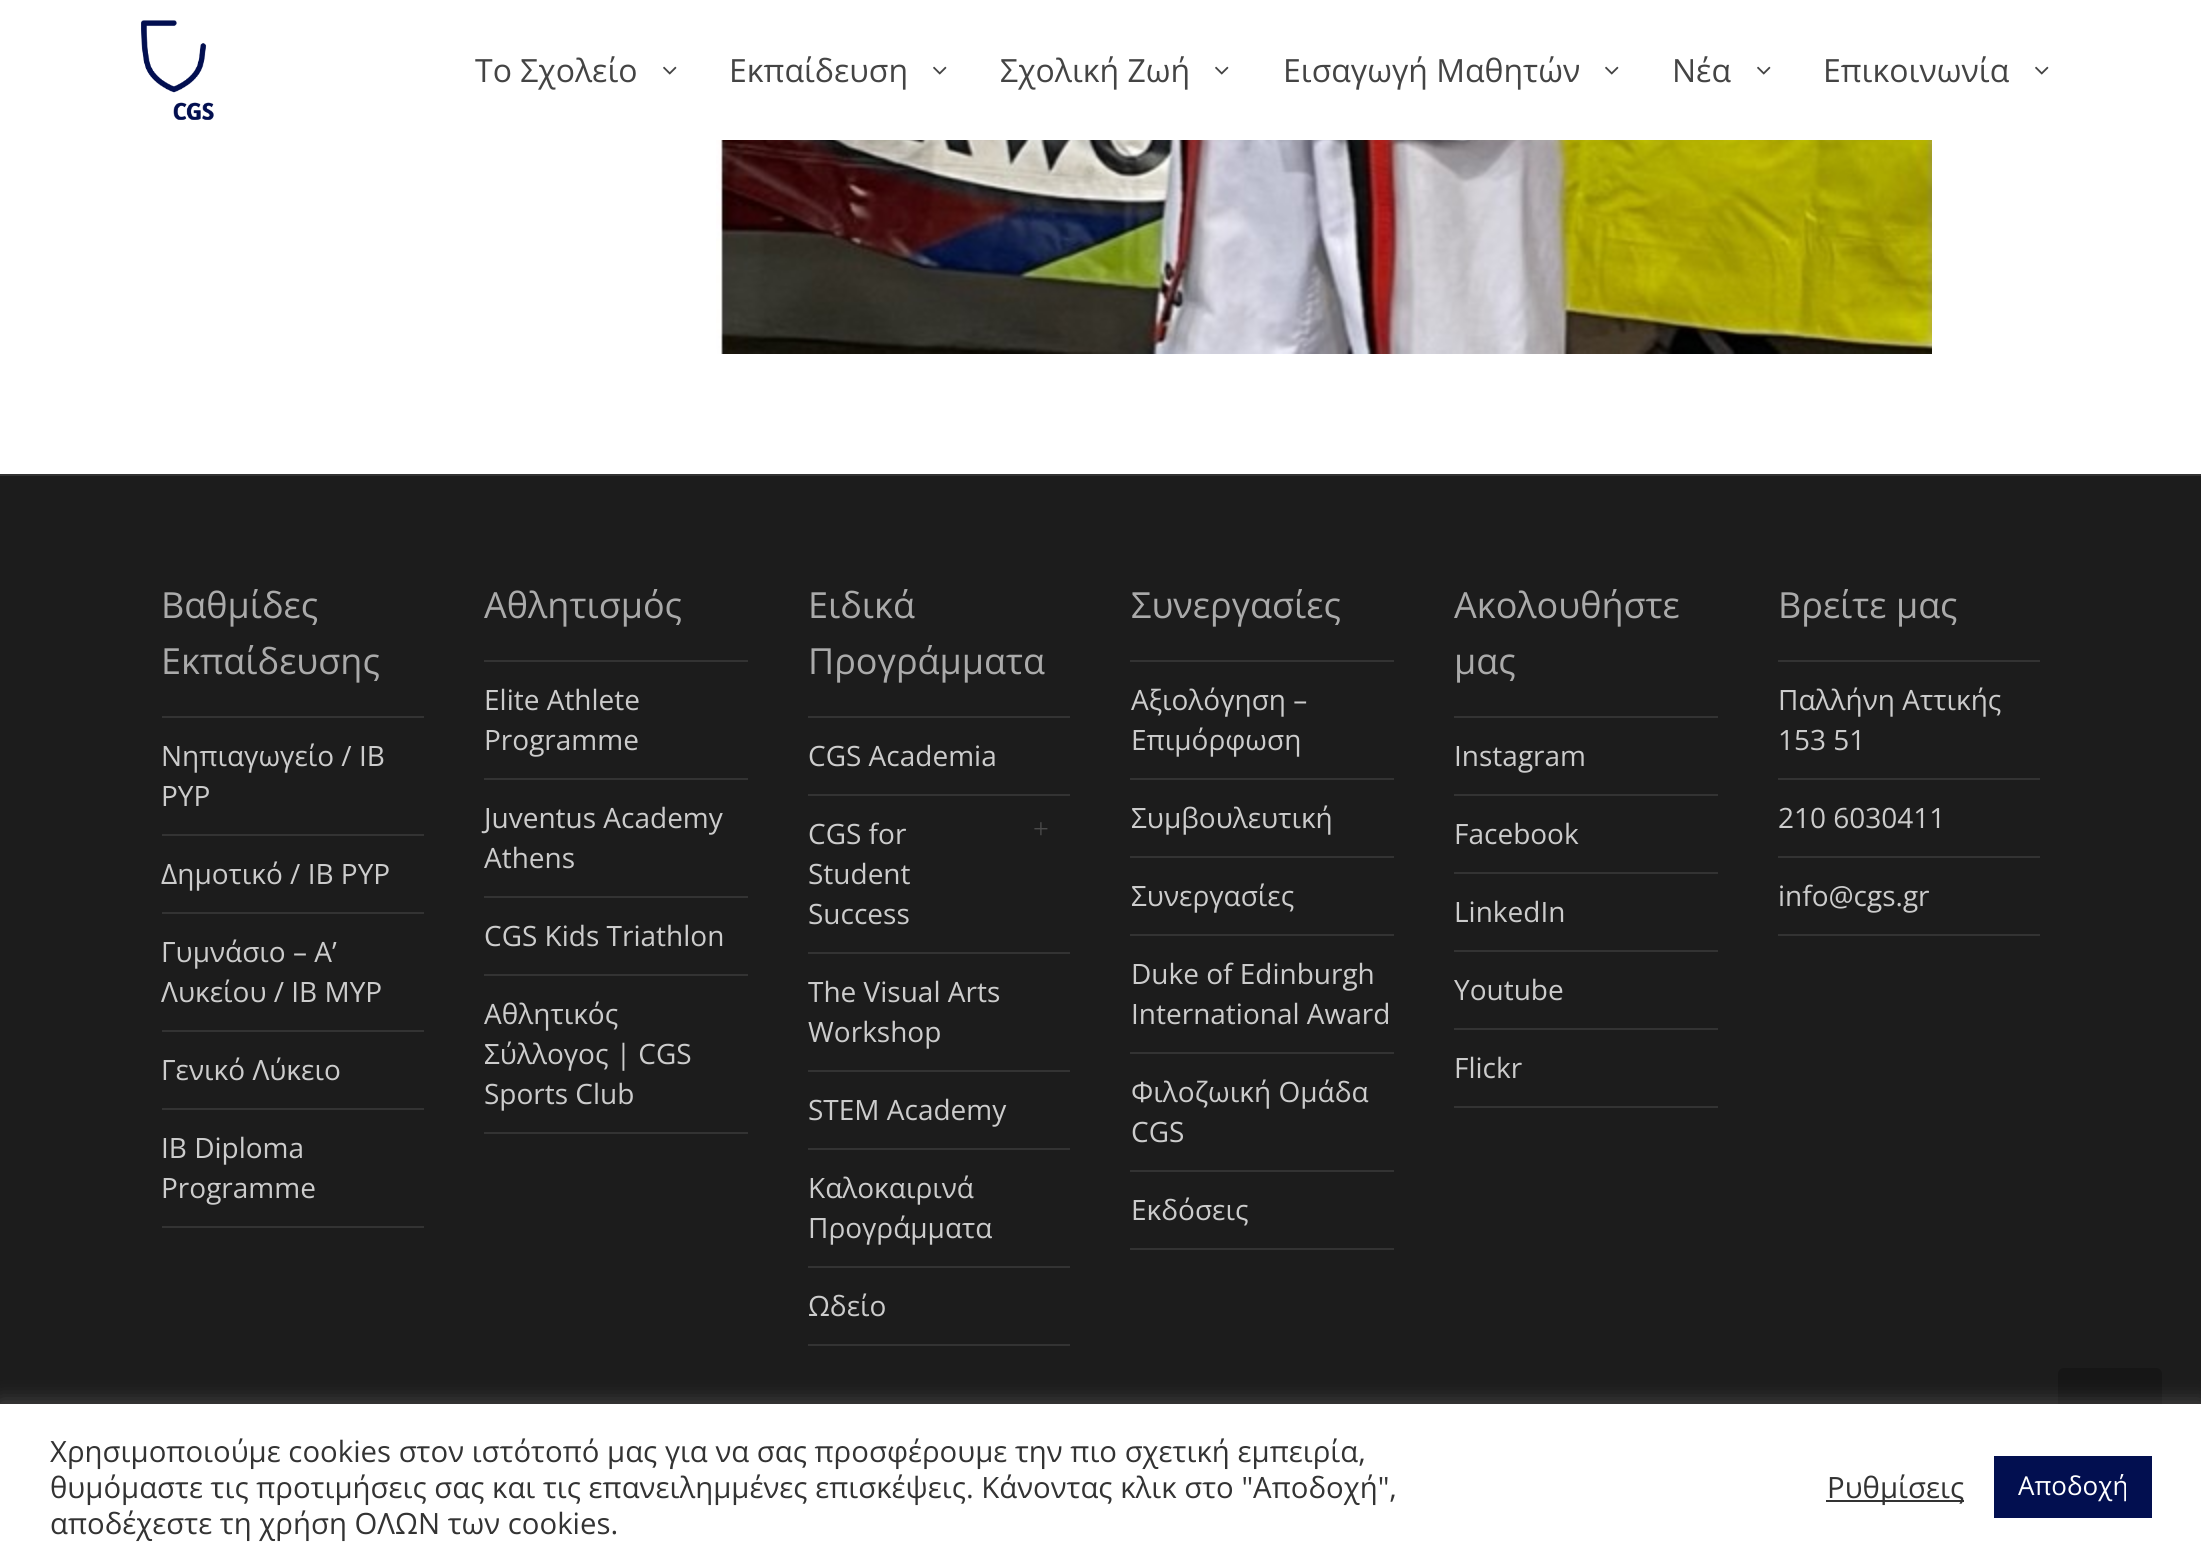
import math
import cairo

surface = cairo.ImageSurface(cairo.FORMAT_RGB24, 2201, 1567)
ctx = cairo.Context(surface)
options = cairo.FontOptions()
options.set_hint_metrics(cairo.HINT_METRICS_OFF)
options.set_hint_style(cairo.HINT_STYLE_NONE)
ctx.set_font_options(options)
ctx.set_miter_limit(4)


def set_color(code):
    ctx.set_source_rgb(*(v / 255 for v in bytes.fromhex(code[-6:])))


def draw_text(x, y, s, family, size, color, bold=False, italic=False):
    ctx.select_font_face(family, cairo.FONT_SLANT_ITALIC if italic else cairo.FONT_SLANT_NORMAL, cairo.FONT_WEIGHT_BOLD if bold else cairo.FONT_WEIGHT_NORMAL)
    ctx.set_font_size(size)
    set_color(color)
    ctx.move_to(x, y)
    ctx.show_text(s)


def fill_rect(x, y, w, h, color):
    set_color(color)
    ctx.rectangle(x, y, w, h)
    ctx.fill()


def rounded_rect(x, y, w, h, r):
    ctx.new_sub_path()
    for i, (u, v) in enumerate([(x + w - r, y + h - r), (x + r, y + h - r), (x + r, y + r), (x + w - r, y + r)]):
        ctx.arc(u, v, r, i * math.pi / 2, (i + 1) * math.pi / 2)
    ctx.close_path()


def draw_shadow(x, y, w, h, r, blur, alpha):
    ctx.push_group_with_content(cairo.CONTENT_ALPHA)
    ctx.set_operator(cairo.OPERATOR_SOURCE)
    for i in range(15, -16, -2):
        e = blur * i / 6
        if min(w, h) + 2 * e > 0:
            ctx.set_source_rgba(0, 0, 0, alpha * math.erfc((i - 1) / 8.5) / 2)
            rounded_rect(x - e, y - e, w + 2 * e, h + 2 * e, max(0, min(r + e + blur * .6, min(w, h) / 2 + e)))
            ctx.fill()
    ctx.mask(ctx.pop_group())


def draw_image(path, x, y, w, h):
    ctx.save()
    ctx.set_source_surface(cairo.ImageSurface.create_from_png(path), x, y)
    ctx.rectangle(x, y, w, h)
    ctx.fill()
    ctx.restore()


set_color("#ffffff")
ctx.paint()
draw_image("assets/img1.png", 141, 20, 73, 100)
draw_text(475, 82, "Το Σχολείο", "Open Sans", 32, "#444444")
draw_image("assets/img2.png", 663, 66, 14, 9)
draw_text(729, 82, "Εκπαίδευση", "Open Sans", 32, "#444444")
draw_image("assets/img2.png", 933, 66, 14, 9)
draw_text(1000, 82, "Σχολική Ζωή", "Open Sans", 32, "#444444")
draw_image("assets/img2.png", 1215, 66, 14, 9)
draw_text(1283, 82, "Εισαγωγή Μαθητών", "Open Sans", 32, "#444444")
draw_image("assets/img2.png", 1605, 66, 14, 9)
draw_text(1672, 82, "Νέα", "Open Sans", 32, "#444444")
draw_image("assets/img2.png", 1757, 66, 14, 9)
draw_text(1823, 82, "Επικοινωνία", "Open Sans", 32, "#444444")
draw_image("assets/img2.png", 2035, 66, 14, 9)
draw_image("assets/img3.png", 716, 140, 1216, 214)
fill_rect(0, 476, 2201, 928, "#1c1c1c")
fill_rect(0, 474, 2201, 2, "#333333")
draw_text(161, 618, "Βαθμίδες", "Open Sans", 36, "#aaaaaa")
draw_text(161, 674, "Εκπαίδευσης", "Open Sans", 36, "#aaaaaa")
fill_rect(162, 716, 262, 2, "#333333")
fill_rect(162, 834, 262, 2, "#333333")
draw_text(161, 766, "Νηπιαγωγείο / IB", "Open Sans", 28, "#cccccc")
draw_text(161, 806, "PYP", "Open Sans", 28, "#cccccc")
fill_rect(162, 912, 262, 2, "#333333")
draw_text(161, 884, "Δημοτικό / IB PYP", "Open Sans", 28, "#cccccc")
fill_rect(162, 1030, 262, 2, "#333333")
draw_text(161, 962, "Γυμνάσιο – Α’", "Open Sans", 28, "#cccccc")
draw_text(161, 1002, "Λυκείου / IB MYP", "Open Sans", 28, "#cccccc")
fill_rect(162, 1108, 262, 2, "#333333")
draw_text(161, 1080, "Γενικό Λύκειο", "Open Sans", 28, "#cccccc")
fill_rect(162, 1226, 262, 2, "#333333")
draw_text(161, 1158, "IB Diploma", "Open Sans", 28, "#cccccc")
draw_text(161, 1198, "Programme", "Open Sans", 28, "#cccccc")
draw_text(484, 618, "Αθλητισμός", "Open Sans", 36, "#aaaaaa")
fill_rect(484, 660, 264, 2, "#333333")
fill_rect(484, 778, 264, 2, "#333333")
draw_text(484, 710, "Elite Athlete", "Open Sans", 28, "#cccccc")
draw_text(484, 750, "Programme", "Open Sans", 28, "#cccccc")
fill_rect(484, 896, 264, 2, "#333333")
draw_text(484, 828, "Juventus Academy", "Open Sans", 28, "#cccccc")
draw_text(484, 868, "Athens", "Open Sans", 28, "#cccccc")
fill_rect(484, 974, 264, 2, "#333333")
draw_text(484, 946, "CGS Kids Triathlon", "Open Sans", 28, "#cccccc")
fill_rect(484, 1132, 264, 2, "#333333")
draw_text(484, 1024, "Αθλητικός", "Open Sans", 28, "#cccccc")
draw_text(484, 1064, "Σύλλογος | CGS", "Open Sans", 28, "#cccccc")
draw_text(484, 1104, "Sports Club", "Open Sans", 28, "#cccccc")
draw_text(808, 618, "Ειδικά", "Open Sans", 36, "#aaaaaa")
draw_text(808, 674, "Προγράμματα", "Open Sans", 36, "#aaaaaa")
fill_rect(808, 716, 262, 2, "#333333")
fill_rect(808, 794, 262, 2, "#333333")
draw_text(808, 766, "CGS Academia", "Open Sans", 28, "#cccccc")
fill_rect(808, 952, 262, 2, "#333333")
draw_text(808, 844, "CGS for", "Open Sans", 28, "#cccccc")
draw_text(1033, 838, "+", "Liberation Serif", 28, "#4a4a4a")
draw_text(808, 884, "Student", "Open Sans", 28, "#cccccc")
draw_text(808, 924, "Success", "Open Sans", 28, "#cccccc")
fill_rect(808, 1070, 262, 2, "#333333")
draw_text(808, 1002, "The Visual Arts", "Open Sans", 28, "#cccccc")
draw_text(808, 1042, "Workshop", "Open Sans", 28, "#cccccc")
fill_rect(808, 1148, 262, 2, "#333333")
draw_text(808, 1120, "STEM Academy", "Open Sans", 28, "#cccccc")
fill_rect(808, 1266, 262, 2, "#333333")
draw_text(808, 1198, "Καλοκαιρινά", "Open Sans", 28, "#cccccc")
draw_text(808, 1238, "Προγράμματα", "Open Sans", 28, "#cccccc")
fill_rect(808, 1344, 262, 2, "#333333")
draw_text(808, 1316, "Ωδείο", "Open Sans", 28, "#cccccc")
draw_text(1131, 618, "Συνεργασίες", "Open Sans", 36, "#aaaaaa")
fill_rect(1130, 660, 264, 2, "#333333")
fill_rect(1130, 778, 264, 2, "#333333")
draw_text(1131, 710, "Αξιολόγηση –", "Open Sans", 28, "#cccccc")
draw_text(1131, 750, "Επιμόρφωση", "Open Sans", 28, "#cccccc")
fill_rect(1130, 856, 264, 2, "#333333")
draw_text(1131, 828, "Συμβουλευτική", "Open Sans", 28, "#cccccc")
fill_rect(1130, 934, 264, 2, "#333333")
draw_text(1131, 906, "Συνεργασίες", "Open Sans", 28, "#cccccc")
fill_rect(1130, 1052, 264, 2, "#333333")
draw_text(1131, 984, "Duke of Edinburgh", "Open Sans", 28, "#cccccc")
draw_text(1131, 1024, "International Award", "Open Sans", 28, "#cccccc")
fill_rect(1130, 1170, 264, 2, "#333333")
draw_text(1131, 1102, "Φιλοζωική Ομάδα", "Open Sans", 28, "#cccccc")
draw_text(1131, 1142, "CGS", "Open Sans", 28, "#cccccc")
fill_rect(1130, 1248, 264, 2, "#333333")
draw_text(1131, 1220, "Εκδόσεις", "Open Sans", 28, "#cccccc")
draw_text(1454, 618, "Ακολουθήστε", "Open Sans", 36, "#aaaaaa")
draw_text(1454, 674, "μας", "Open Sans", 36, "#aaaaaa")
fill_rect(1454, 716, 264, 2, "#333333")
fill_rect(1454, 794, 264, 2, "#333333")
draw_text(1454, 766, "Instagram", "Open Sans", 28, "#cccccc")
fill_rect(1454, 872, 264, 2, "#333333")
draw_text(1454, 844, "Facebook", "Open Sans", 28, "#cccccc")
fill_rect(1454, 950, 264, 2, "#333333")
draw_text(1454, 922, "LinkedIn", "Open Sans", 28, "#cccccc")
fill_rect(1454, 1028, 264, 2, "#333333")
draw_text(1454, 1000, "Youtube", "Open Sans", 28, "#cccccc")
fill_rect(1454, 1106, 264, 2, "#333333")
draw_text(1454, 1078, "Flickr", "Open Sans", 28, "#cccccc")
draw_text(1778, 618, "Βρείτε μας", "Open Sans", 36, "#aaaaaa")
fill_rect(1778, 660, 262, 2, "#333333")
fill_rect(1778, 778, 262, 2, "#333333")
draw_text(1778, 710, "Παλλήνη Αττικής", "Open Sans", 28, "#cccccc")
draw_text(1778, 750, "153 51", "Open Sans", 28, "#cccccc")
fill_rect(1778, 856, 262, 2, "#333333")
draw_text(1778, 828, "210 6030411", "Open Sans", 28, "#cccccc")
fill_rect(1778, 934, 262, 2, "#333333")
draw_text(1778, 906, "info@cgs.gr", "Open Sans", 28, "#cccccc")
set_color("#161616")
rounded_rect(2058, 1368, 104, 100, 6)
ctx.fill()
set_color("#acabab")
draw_shadow(0, 1402, 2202, 164, 0, 10, 0.3)
fill_rect(0, 1404, 2201, 163, "#ffffff")
draw_text(50, 1462, "Χρησιμοποιούμε cookies στον ιστότοπό μας για να σας προσφέρουμε την πιο σχετική εμπειρία,", "Open Sans", 29.35, "#333333")
draw_text(50, 1498, "θυμόμαστε τις προτιμήσεις σας και τις επανειλημμένες επισκέψεις. Κάνοντας κλικ στο \"Αποδοχή\",", "Open Sans", 29.35, "#333333")
draw_text(50, 1534, "αποδέχεστε τη χρήση ΟΛΩΝ των cookies.", "Open Sans", 29.35, "#333333")
fill_rect(1826, 1500, 138, 2, "#333333")
draw_text(1827, 1498, "Ρυθμίσεις", "Open Sans", 29.35, "#333333")
fill_rect(1994, 1456, 158, 62, "#020f50")
draw_text(2018, 1495, "Αποδοχή", "Open Sans", 26, "#ffffff")
surface.write_to_png("output.png")
